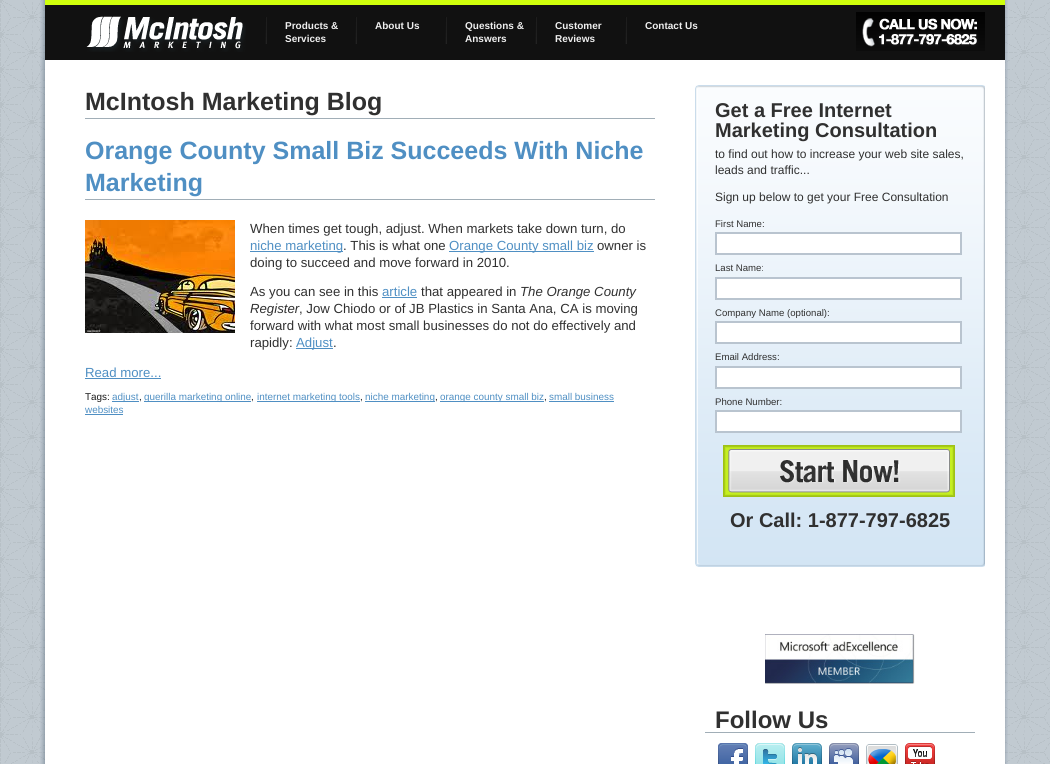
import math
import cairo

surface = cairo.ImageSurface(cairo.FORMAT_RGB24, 1050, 764)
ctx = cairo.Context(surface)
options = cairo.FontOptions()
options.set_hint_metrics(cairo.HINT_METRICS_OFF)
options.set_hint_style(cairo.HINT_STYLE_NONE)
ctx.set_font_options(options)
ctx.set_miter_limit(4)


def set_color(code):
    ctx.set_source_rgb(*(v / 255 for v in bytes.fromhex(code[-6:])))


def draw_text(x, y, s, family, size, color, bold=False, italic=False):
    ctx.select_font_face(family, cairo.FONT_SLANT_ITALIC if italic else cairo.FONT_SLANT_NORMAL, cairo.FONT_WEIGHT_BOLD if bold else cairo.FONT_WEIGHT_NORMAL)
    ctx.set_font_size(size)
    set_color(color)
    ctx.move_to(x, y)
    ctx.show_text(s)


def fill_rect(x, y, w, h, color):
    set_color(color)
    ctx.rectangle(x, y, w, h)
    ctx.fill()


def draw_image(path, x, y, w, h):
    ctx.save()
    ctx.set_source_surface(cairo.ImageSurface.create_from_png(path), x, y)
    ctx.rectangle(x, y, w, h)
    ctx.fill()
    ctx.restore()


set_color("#ffffff")
ctx.paint()
draw_image("assets/img1.png", 0, 0, 1050, 764)
draw_image("assets/img2.png", 40, 0, 968, 60)
fill_rect(45, 5, 960, 55, "#111111")
fill_rect(45, 0, 960, 5, "#cfff0c")
draw_image("assets/img3.png", 86, 16, 160, 36)
draw_image("assets/img4.png", 265, 17, 2, 27)
draw_text(285, 29, "Products &", "Liberation Sans", 10, "#efefef", bold=True)
draw_text(285, 42, "Services", "Liberation Sans", 10, "#efefef", bold=True)
draw_image("assets/img4.png", 355, 17, 2, 27)
draw_text(375, 29, "About Us", "Liberation Sans", 10, "#efefef", bold=True)
draw_image("assets/img4.png", 445, 17, 2, 27)
draw_text(465, 29, "Questions &", "Liberation Sans", 10, "#efefef", bold=True)
draw_text(465, 42, "Answers", "Liberation Sans", 10, "#efefef", bold=True)
draw_image("assets/img4.png", 535, 17, 2, 27)
draw_text(555, 29, "Customer", "Liberation Sans", 10, "#efefef", bold=True)
draw_text(555, 42, "Reviews", "Liberation Sans", 10, "#efefef", bold=True)
draw_image("assets/img4.png", 625, 17, 2, 27)
draw_text(645, 29, "Contact Us", "Liberation Sans", 10, "#efefef", bold=True)
draw_image("assets/img5.png", 856, 12, 129, 39)
draw_image("assets/img6.png", 40, 60, 968, 704)
fill_rect(45, 60, 960, 704, "#ffffff")
fill_rect(85, 118, 570, 1, "#a1aeb7")
draw_text(85, 110, "McIntosh Marketing Blog", "Liberation Sans", 25, "#303030", bold=True)
fill_rect(85, 199, 570, 1, "#a1aeb7")
draw_text(85, 159, "Orange County Small Biz Succeeds With Niche", "Liberation Sans", 25, "#4f8fc3", bold=True)
draw_text(85, 191, "Marketing", "Liberation Sans", 25, "#4f8fc3", bold=True)
draw_image("assets/img7.png", 85, 220, 150, 113)
draw_text(250, 233, "When times get tough, adjust. When markets take down turn, do", "Liberation Sans", 13.2, "#303030")
fill_rect(250, 251, 93, 1, "#4f8fc3")
draw_text(250, 250, "niche marketing", "Liberation Sans", 13.2, "#4f8fc3")
draw_text(343, 250, ". This is what one", "Liberation Sans", 13.2, "#303030")
fill_rect(449, 251, 145, 1, "#4f8fc3")
draw_text(449, 250, "Orange County small biz", "Liberation Sans", 13.2, "#4f8fc3")
draw_text(597, 250, "owner is", "Liberation Sans", 13.2, "#303030")
draw_text(250, 267, "doing to succeed and move forward in 2010.", "Liberation Sans", 13.2, "#303030")
draw_text(250, 296, "As you can see in this", "Liberation Sans", 13.2, "#303030")
draw_text(382, 296, "article", "Liberation Sans", 13.2, "#4f8fc3")
fill_rect(382, 297, 35, 1, "#4f8fc3")
draw_text(421, 296, "that appeared in", "Liberation Sans", 13.2, "#303030")
draw_text(520, 296, "The Orange County", "Liberation Sans", 13.2, "#303030", italic=True)
draw_text(250, 313, "Register", "Liberation Sans", 13.2, "#303030", italic=True)
draw_text(299, 313, ", Jow Chiodo or of JB Plastics in Santa Ana, CA is moving", "Liberation Sans", 13.2, "#303030")
draw_text(250, 330, "forward with what most small businesses do not do effectively and", "Liberation Sans", 13.2, "#303030")
draw_text(250, 347, "rapidly:", "Liberation Sans", 13.2, "#303030")
fill_rect(296, 348, 37, 1, "#4f8fc3")
draw_text(296, 347, "Adjust", "Liberation Sans", 13.2, "#4f8fc3")
draw_text(333, 347, ".", "Liberation Sans", 13.2, "#303030")
draw_text(85, 377, "Read more...", "Liberation Sans", 13.2, "#4f8fc3")
fill_rect(85, 378, 76, 1, "#4f8fc3")
draw_text(85, 400, "Tags:", "Liberation Sans", 9.9, "#1a1a1a")
fill_rect(112, 401, 27, 1, "#4f8fc3")
draw_text(112, 400, "adjust", "Liberation Sans", 9.9, "#4f8fc3")
draw_text(139, 400, ",", "Liberation Sans", 9.9, "#1a1a1a")
fill_rect(144, 401, 107, 1, "#4f8fc3")
draw_text(144, 400, "guerilla marketing online", "Liberation Sans", 9.9, "#4f8fc3")
draw_text(251, 400, ",", "Liberation Sans", 9.9, "#1a1a1a")
fill_rect(257, 401, 103, 1, "#4f8fc3")
draw_text(257, 400, "internet marketing tools", "Liberation Sans", 9.9, "#4f8fc3")
draw_text(360, 400, ",", "Liberation Sans", 9.9, "#1a1a1a")
fill_rect(365, 401, 70, 1, "#4f8fc3")
draw_text(365, 400, "niche marketing", "Liberation Sans", 9.9, "#4f8fc3")
draw_text(435, 400, ",", "Liberation Sans", 9.9, "#1a1a1a")
fill_rect(440, 401, 104, 1, "#4f8fc3")
draw_text(440, 400, "orange county small biz", "Liberation Sans", 9.9, "#4f8fc3")
draw_text(544, 400, ",", "Liberation Sans", 9.9, "#1a1a1a")
draw_text(549, 400, "small business", "Liberation Sans", 9.9, "#4f8fc3")
fill_rect(549, 401, 65, 1, "#4f8fc3")
draw_text(85, 413, "websites", "Liberation Sans", 9.9, "#4f8fc3")
fill_rect(85, 414, 38, 1, "#4f8fc3")
draw_image("assets/img8.png", 695, 85, 290, 482)
draw_text(715, 117, "Get a Free Internet", "Liberation Sans", 20, "#303030", bold=True)
draw_text(715, 137, "Marketing Consultation", "Liberation Sans", 20, "#303030", bold=True)
draw_text(715, 158, "to find out how to increase your web site sales,", "Liberation Sans", 12, "#303030")
draw_text(715, 174, "leads and traffic...", "Liberation Sans", 12, "#303030")
draw_text(715, 201, "Sign up below to get your Free Consultation", "Liberation Sans", 12, "#303030")
draw_text(715, 227, "First Name:", "Liberation Sans", 9.6, "#303030")
set_color("#ffffff")
ctx.rectangle(716, 233, 245, 21)
ctx.fill_preserve()
set_color("#b9c4cf")
ctx.stroke()
draw_text(715, 271, "Last Name:", "Liberation Sans", 9.6, "#303030")
set_color("#ffffff")
ctx.rectangle(716, 278, 245, 21)
ctx.fill_preserve()
set_color("#b9c4cf")
ctx.stroke()
draw_text(715, 316, "Company Name (optional):", "Liberation Sans", 9.6, "#303030")
set_color("#ffffff")
ctx.rectangle(716, 322, 245, 21)
ctx.fill_preserve()
set_color("#b9c4cf")
ctx.stroke()
draw_text(715, 360, "Email Address:", "Liberation Sans", 9.6, "#303030")
set_color("#ffffff")
ctx.rectangle(716, 367, 245, 21)
ctx.fill_preserve()
set_color("#b9c4cf")
ctx.stroke()
draw_text(715, 405, "Phone Number:", "Liberation Sans", 9.6, "#303030")
set_color("#ffffff")
ctx.rectangle(716, 411, 245, 21)
ctx.fill_preserve()
set_color("#b9c4cf")
ctx.stroke()
draw_image("assets/img9.png", 723, 445, 232, 52)
draw_text(730, 527, "Or Call: 1-877-797-6825", "Liberation Sans", 20, "#303030", bold=True)
draw_image("assets/img10.png", 765, 634, 150, 50)
fill_rect(705, 732, 270, 1, "#a1aeb7")
draw_text(715, 728, "Follow Us", "Liberation Sans", 24, "#303030", bold=True)
draw_image("assets/img11.png", 718, 743, 30, 21)
draw_image("assets/img12.png", 755, 743, 30, 21)
draw_image("assets/img13.png", 792, 743, 30, 21)
draw_image("assets/img14.png", 829, 743, 30, 21)
draw_image("assets/img15.png", 866, 744, 32, 20)
draw_image("assets/img16.png", 905, 743, 30, 21)
surface.write_to_png("output.png")
